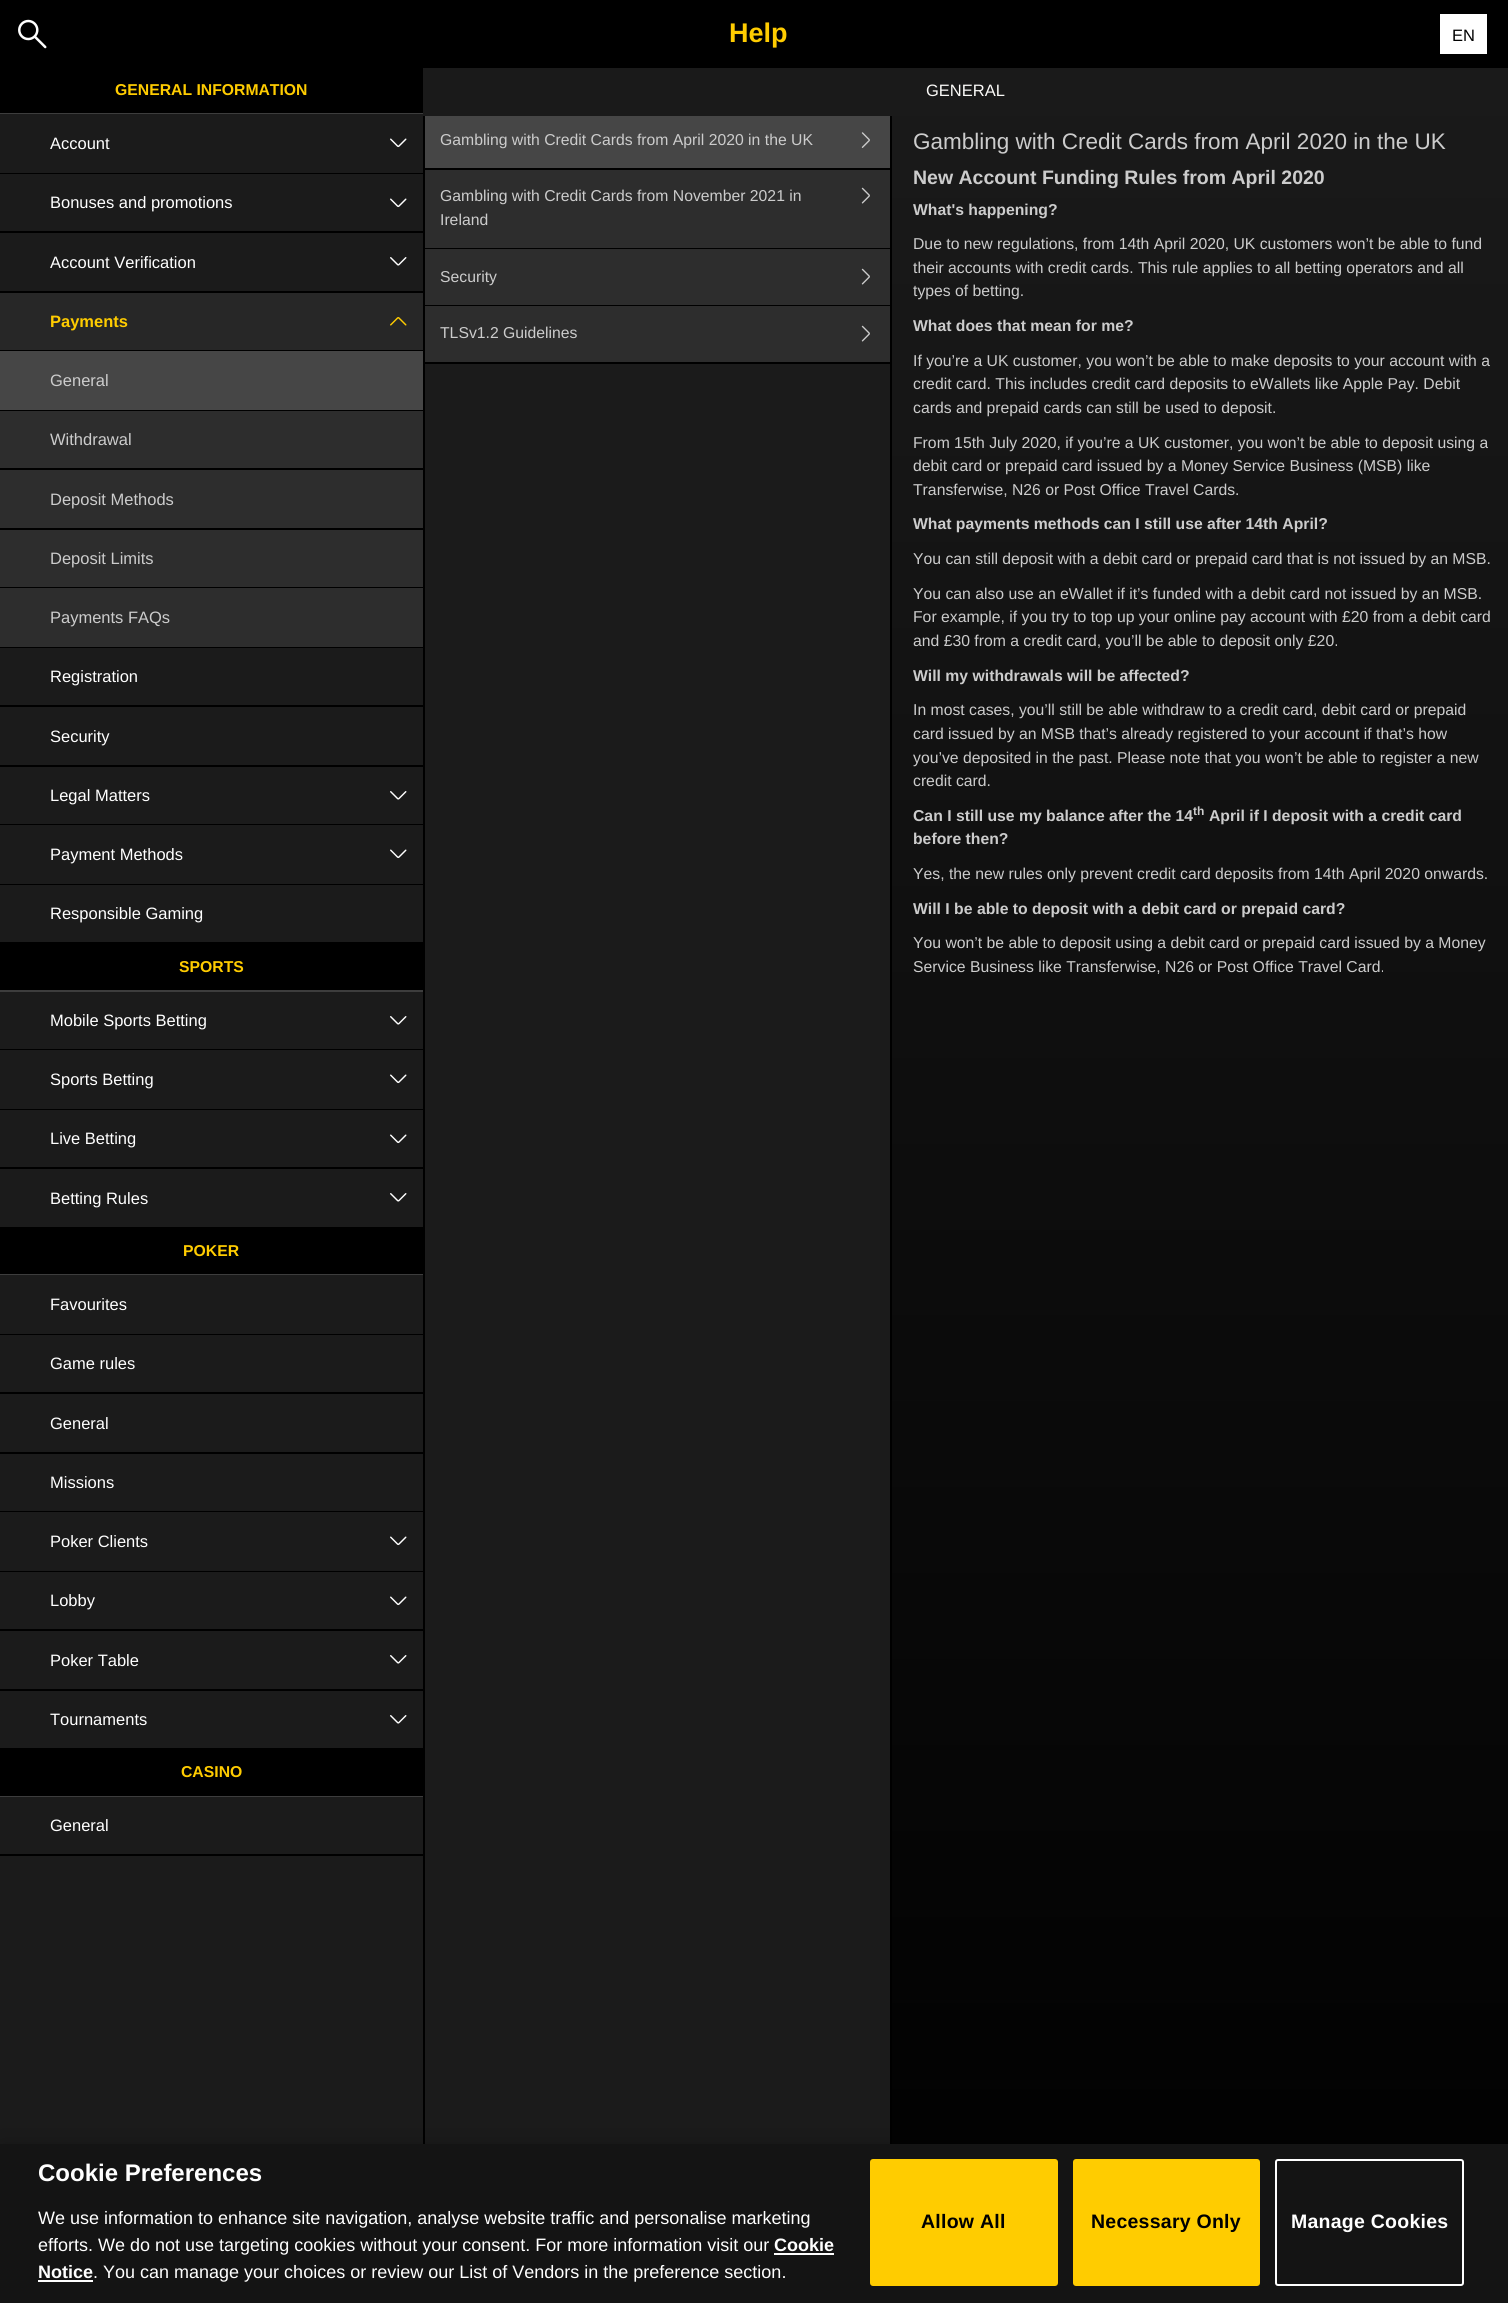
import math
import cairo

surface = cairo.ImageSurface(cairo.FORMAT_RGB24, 1508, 2303)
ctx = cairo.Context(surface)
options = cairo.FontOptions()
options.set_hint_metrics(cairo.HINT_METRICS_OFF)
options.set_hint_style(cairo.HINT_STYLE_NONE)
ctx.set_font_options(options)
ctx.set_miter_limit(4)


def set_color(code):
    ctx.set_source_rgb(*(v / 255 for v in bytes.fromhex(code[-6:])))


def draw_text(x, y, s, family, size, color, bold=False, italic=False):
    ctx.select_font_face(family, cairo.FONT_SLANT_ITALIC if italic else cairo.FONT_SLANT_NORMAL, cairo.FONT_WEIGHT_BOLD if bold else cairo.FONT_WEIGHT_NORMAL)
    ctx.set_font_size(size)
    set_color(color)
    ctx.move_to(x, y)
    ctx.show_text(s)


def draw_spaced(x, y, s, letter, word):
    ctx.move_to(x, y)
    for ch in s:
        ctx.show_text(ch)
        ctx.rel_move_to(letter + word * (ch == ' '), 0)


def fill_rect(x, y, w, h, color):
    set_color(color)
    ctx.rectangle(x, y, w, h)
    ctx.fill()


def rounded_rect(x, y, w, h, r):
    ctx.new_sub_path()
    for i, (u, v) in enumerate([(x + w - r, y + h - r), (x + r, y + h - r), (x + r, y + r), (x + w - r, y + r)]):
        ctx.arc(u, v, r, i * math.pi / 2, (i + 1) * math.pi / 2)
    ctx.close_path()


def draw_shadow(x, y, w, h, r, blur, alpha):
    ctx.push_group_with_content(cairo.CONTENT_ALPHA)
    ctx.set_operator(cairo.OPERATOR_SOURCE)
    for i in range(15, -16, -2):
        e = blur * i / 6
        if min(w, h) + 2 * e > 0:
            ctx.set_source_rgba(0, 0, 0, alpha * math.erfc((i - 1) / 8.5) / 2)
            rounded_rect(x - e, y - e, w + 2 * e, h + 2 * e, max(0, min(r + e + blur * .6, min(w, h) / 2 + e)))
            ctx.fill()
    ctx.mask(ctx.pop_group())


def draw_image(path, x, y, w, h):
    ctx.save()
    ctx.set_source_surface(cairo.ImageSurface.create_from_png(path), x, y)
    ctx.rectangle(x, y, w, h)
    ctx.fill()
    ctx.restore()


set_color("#ffffff")
ctx.paint()
fill_rect(0, 0, 1508, 68, "#000000")
draw_image("assets/img1.png", 18, 19, 29, 30)
draw_text(729, 42, "Help", "Liberation Sans", 27, "#ffcc00", bold=True)
fill_rect(1440, 14, 47, 40, "#ffffff")
draw_text(1452, 41, "EN", "Liberation Sans", 16.5, "#000000")
fill_rect(0, 233, 423, 1911, "#1b1b1b")
fill_rect(0, 68, 423, 45, "#000000")
fill_rect(0, 113, 423, 1, "#3d3d3d")
draw_text(115, 95, "GENERAL INFORMATION", "Liberation Sans", 15.75, "#ffcc00", bold=True)
fill_rect(0, 114, 423, 59, "#1b1b1b")
fill_rect(0, 173, 423, 1, "#000000")
draw_text(50, 149, "Account", "Liberation Sans", 16.5, "#ffffff")
draw_image("assets/img2.png", 390, 138, 17, 10)
fill_rect(0, 174, 423, 57, "#1b1b1b")
fill_rect(0, 231, 423, 2, "#000000")
draw_text(50, 208, "Bonuses and promotions", "Liberation Sans", 16.5, "#ffffff")
draw_image("assets/img2.png", 390, 198, 17, 10)
fill_rect(0, 291, 423, 2, "#000000")
draw_text(50, 268, "Account Verification", "Liberation Sans", 16.5, "#ffffff")
draw_image("assets/img3.png", 390, 257, 17, 9)
fill_rect(0, 647, 423, 1, "#000000")
fill_rect(0, 293, 423, 57, "#272727")
draw_text(50, 327, "Payments", "Liberation Sans", 16.5, "#ffcc00", bold=True)
draw_image("assets/img4.png", 390, 317, 17, 9)
fill_rect(0, 350, 423, 1, "#000000")
fill_rect(0, 410, 423, 1, "#000000")
fill_rect(0, 351, 423, 59, "#464646")
draw_text(50, 386, "General", "Liberation Sans", 16.5, "#cccccc")
fill_rect(0, 468, 423, 2, "#000000")
fill_rect(0, 411, 423, 57, "#2d2d2d")
draw_text(50, 445, "Withdrawal", "Liberation Sans", 16.5, "#cccccc")
fill_rect(0, 528, 423, 2, "#000000")
fill_rect(0, 470, 423, 58, "#2d2d2d")
draw_text(50, 505, "Deposit Methods", "Liberation Sans", 16.5, "#cccccc")
fill_rect(0, 587, 423, 1, "#000000")
fill_rect(0, 530, 423, 57, "#2d2d2d")
draw_text(50, 564, "Deposit Limits", "Liberation Sans", 16.5, "#cccccc")
fill_rect(0, 588, 423, 59, "#2d2d2d")
draw_text(50, 623, "Payments FAQs", "Liberation Sans", 16.5, "#cccccc")
fill_rect(0, 705, 423, 2, "#000000")
draw_text(50, 682, "Registration", "Liberation Sans", 16.5, "#ffffff")
fill_rect(0, 765, 423, 2, "#000000")
draw_text(50, 742, "Security", "Liberation Sans", 16.5, "#ffffff")
fill_rect(0, 824, 423, 1, "#000000")
draw_text(50, 801, "Legal Matters", "Liberation Sans", 16.5, "#ffffff")
draw_image("assets/img3.png", 390, 791, 17, 9)
fill_rect(0, 884, 423, 1, "#000000")
draw_text(50, 860, "Payment Methods", "Liberation Sans", 16.5, "#ffffff")
draw_image("assets/img2.png", 390, 849, 17, 10)
draw_text(50, 919, "Responsible Gaming", "Liberation Sans", 16.5, "#ffffff")
fill_rect(0, 942, 423, 48, "#000000")
fill_rect(0, 990, 423, 2, "#3d3d3d")
draw_text(179, 972, "SPORTS", "Liberation Sans", 15.75, "#ffcc00", bold=True)
fill_rect(0, 1049, 423, 1, "#000000")
draw_text(50, 1026, "Mobile Sports Betting", "Liberation Sans", 16.5, "#ffffff")
draw_image("assets/img3.png", 390, 1016, 17, 9)
fill_rect(0, 1109, 423, 1, "#000000")
draw_text(50, 1085, "Sports Betting", "Liberation Sans", 16.5, "#ffffff")
draw_image("assets/img2.png", 390, 1074, 17, 10)
fill_rect(0, 1167, 423, 2, "#000000")
draw_text(50, 1144, "Live Betting", "Liberation Sans", 16.5, "#ffffff")
draw_image("assets/img2.png", 390, 1134, 17, 10)
draw_text(50, 1204, "Betting Rules", "Liberation Sans", 16.5, "#ffffff")
draw_image("assets/img3.png", 390, 1193, 17, 9)
fill_rect(0, 1227, 423, 47, "#000000")
fill_rect(0, 1274, 423, 1, "#3d3d3d")
draw_text(183, 1256, "POKER", "Liberation Sans", 15.75, "#ffcc00", bold=True)
fill_rect(0, 1334, 423, 1, "#000000")
draw_text(50, 1310, "Favourites", "Liberation Sans", 16.5, "#ffffff")
fill_rect(0, 1392, 423, 2, "#000000")
draw_text(50, 1369, "Game rules", "Liberation Sans", 16.5, "#ffffff")
fill_rect(0, 1452, 423, 2, "#000000")
draw_text(50, 1429, "General", "Liberation Sans", 16.5, "#ffffff")
fill_rect(0, 1511, 423, 1, "#000000")
draw_text(50, 1488, "Missions", "Liberation Sans", 16.5, "#ffffff")
fill_rect(0, 1571, 423, 1, "#000000")
draw_text(50, 1547, "Poker Clients", "Liberation Sans", 16.5, "#ffffff")
draw_image("assets/img2.png", 390, 1536, 17, 10)
fill_rect(0, 1629, 423, 2, "#000000")
draw_text(50, 1606, "Lobby", "Liberation Sans", 16.5, "#ffffff")
draw_image("assets/img2.png", 390, 1596, 17, 10)
fill_rect(0, 1689, 423, 2, "#000000")
draw_text(50, 1666, "Poker Table", "Liberation Sans", 16.5, "#ffffff")
draw_image("assets/img3.png", 390, 1655, 17, 9)
draw_text(50, 1725, "Tournaments", "Liberation Sans", 16.5, "#ffffff")
draw_image("assets/img3.png", 390, 1715, 17, 9)
fill_rect(0, 1748, 423, 48, "#000000")
fill_rect(0, 1796, 423, 1, "#3d3d3d")
draw_text(181, 1777, "CASINO", "Liberation Sans", 15.75, "#ffcc00", bold=True)
fill_rect(0, 1854, 423, 2, "#000000")
draw_text(50, 1831, "General", "Liberation Sans", 16.5, "#ffffff")
fill_rect(890, 113, 2, 2031, "#000000")
fill_rect(423, 68, 1085, 48, "#1a1a1a")
draw_text(926, 96, "GENERAL", "Liberation Sans", 16.5, "#fbfaf8")
gradient = cairo.LinearGradient(967, 68, 967, 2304)
gradient.add_color_stop_rgba(0, 0.102, 0.102, 0.102, 1)
gradient.add_color_stop_rgba(1, 0, 0, 0, 1)
ctx.set_source(gradient)
ctx.rectangle(892, 116, 616, 2028)
ctx.fill()
fill_rect(423, 116, 2, 2028, "#000000")
fill_rect(425, 364, 465, 1780, "#1b1b1b")
fill_rect(425, 116, 465, 52, "#464646")
fill_rect(425, 168, 465, 2, "#000000")
draw_text(440, 145, "Gambling with Credit Cards from April 2020 in the UK", "Liberation Sans", 15.75, "#cccccc")
draw_image("assets/img5.png", 861, 132, 9, 16)
fill_rect(425, 170, 465, 78, "#2d2d2d")
fill_rect(425, 248, 465, 1, "#000000")
draw_text(440, 201, "Gambling with Credit Cards from November 2021 in", "Liberation Sans", 15.75, "#cccccc")
draw_image("assets/img6.png", 861, 187, 9, 17)
draw_text(440, 225, "Ireland", "Liberation Sans", 15.75, "#cccccc")
fill_rect(425, 249, 465, 56, "#2d2d2d")
fill_rect(425, 305, 465, 1, "#000000")
draw_text(440, 282, "Security", "Liberation Sans", 15.75, "#cccccc")
draw_image("assets/img6.png", 861, 268, 9, 17)
fill_rect(425, 306, 465, 56, "#2d2d2d")
fill_rect(425, 362, 465, 2, "#000000")
draw_text(440, 338, "TLSv1.2 Guidelines", "Liberation Sans", 15.75, "#cccccc")
draw_image("assets/img6.png", 861, 325, 9, 17)
draw_text(913, 149, "Gambling with Credit Cards from April 2020 in the UK", "Liberation Sans", 22.5, "#cccccc")
draw_text(913, 184, "New Account Funding Rules from April 2020", "Liberation Sans", 19.5, "#cccccc", bold=True)
draw_text(913, 215, "What's happening?", "Liberation Sans", 15.75, "#cccccc", bold=True)
draw_text(913, 249, "Due to new regulations, from 14th April 2020, UK customers won’t be able to fund", "Liberation Sans", 15.75, "#cccccc")
draw_text(913, 273, "their accounts with credit cards. This rule applies to all betting operators and all", "Liberation Sans", 15.75, "#cccccc")
draw_text(913, 296, "types of betting.", "Liberation Sans", 15.75, "#cccccc")
draw_text(913, 331, "What does that mean for me?", "Liberation Sans", 15.75, "#cccccc", bold=True)
draw_text(913, 366, "If you’re a UK customer, you won’t be able to make deposits to your account with a", "Liberation Sans", 15.75, "#cccccc")
draw_text(913, 389, "credit card. This includes credit card deposits to eWallets like Apple Pay. Debit", "Liberation Sans", 15.75, "#cccccc")
draw_text(913, 413, "cards and prepaid cards can still be used to deposit.", "Liberation Sans", 15.75, "#cccccc")
draw_text(913, 448, "From 15th July 2020, if you’re a UK customer, you won’t be able to deposit using a", "Liberation Sans", 15.75, "#cccccc")
draw_text(913, 471, "debit card or prepaid card issued by a Money Service Business (MSB) like", "Liberation Sans", 15.75, "#cccccc")
draw_text(913, 495, "Transferwise, N26 or Post Office Travel Cards.", "Liberation Sans", 15.75, "#cccccc")
draw_text(913, 529, "What payments methods can I still use after 14th April?", "Liberation Sans", 15.75, "#cccccc", bold=True)
draw_text(913, 564, "You can still deposit with a debit card or prepaid card that is not issued by an MSB.", "Liberation Sans", 15.75, "#cccccc")
draw_text(913, 599, "You can also use an eWallet if it’s funded with a debit card not issued by an MSB.", "Liberation Sans", 15.75, "#cccccc")
draw_text(913, 622, "For example, if you try to top up your online pay account with £20 from a debit card", "Liberation Sans", 15.75, "#cccccc")
draw_text(913, 646, "and £30 from a credit card, you’ll be able to deposit only £20.", "Liberation Sans", 15.75, "#cccccc")
draw_text(913, 681, "Will my withdrawals will be affected?", "Liberation Sans", 15.75, "#cccccc", bold=True)
draw_text(913, 715, "In most cases, you’ll still be able withdraw to a credit card, debit card or prepaid", "Liberation Sans", 15.75, "#cccccc")
draw_text(913, 739, "card issued by an MSB that’s already registered to your account if that’s how", "Liberation Sans", 15.75, "#cccccc")
draw_text(913, 763, "you’ve deposited in the past. Please note that you won’t be able to register a new", "Liberation Sans", 15.75, "#cccccc")
draw_text(913, 786, "credit card.", "Liberation Sans", 15.75, "#cccccc")
draw_text(913, 821, "Can I still use my balance after the 14", "Liberation Sans", 15.75, "#cccccc", bold=True)
draw_text(1193, 815, "th", "Liberation Sans", 12, "#cccccc", bold=True)
draw_text(1209, 821, "April if I deposit with a credit card", "Liberation Sans", 15.75, "#cccccc", bold=True)
draw_text(913, 844, "before then?", "Liberation Sans", 15.75, "#cccccc", bold=True)
draw_text(913, 879, "Yes, the new rules only prevent credit card deposits from 14th April 2020 onwards.", "Liberation Sans", 15.75, "#cccccc")
draw_text(913, 914, "Will I be able to deposit with a debit card or prepaid card?", "Liberation Sans", 15.75, "#cccccc", bold=True)
draw_text(913, 948, "You won’t be able to deposit using a debit card or prepaid card issued by a Money", "Liberation Sans", 15.75, "#cccccc")
draw_text(913, 972, "Service Business like Transferwise, N26 or Post Office Travel Card.", "Liberation Sans", 15.75, "#cccccc")
set_color("#000000")
draw_shadow(0, 2144, 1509, 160, 0, 13.5, 0.2)
fill_rect(0, 2144, 1508, 159, "#141414")
draw_text(38, 2181, "Cookie Preferences", "Liberation Sans", 24, "#ffffff", bold=True)
draw_text(38, 2224, "We use information to enhance site navigation, analyse website traffic and personalise marketing", "Liberation Sans", 18, "#ffffff")
draw_text(38, 2251, "efforts. We do not use targeting cookies without your consent. For more information visit our", "Liberation Sans", 18, "#ffffff")
draw_text(774, 2251, "Cookie", "Liberation Sans", 18, "#ffffff", bold=True)
fill_rect(774, 2253, 60, 2, "#ffffff")
draw_text(38, 2278, "Notice", "Liberation Sans", 18, "#ffffff", bold=True)
fill_rect(38, 2280, 55, 2, "#ffffff")
draw_text(93, 2278, ". You can manage your choices or review our List of Vendors in the preference section.", "Liberation Sans", 18, "#ffffff")
set_color("#ffcc00")
rounded_rect(871, 2160, 186, 125, 2)
ctx.fill_preserve()
ctx.stroke()
ctx.select_font_face("Liberation Sans", cairo.FONT_SLANT_NORMAL, cairo.FONT_WEIGHT_BOLD)
ctx.set_font_size(19.5)
set_color("#000000")
draw_spaced(921, 2228, "Allow All", 0.25, 0)
set_color("#ffcc00")
rounded_rect(1074, 2160, 185, 125, 2)
ctx.fill_preserve()
ctx.stroke()
set_color("#000000")
draw_spaced(1091, 2228, "Necessary Only", 0.25, 0)
rounded_rect(1276, 2160, 187, 125, 2)
set_color("#ffffff")
ctx.stroke()
draw_spaced(1291, 2228, "Manage Cookies", 0.25, 0)
surface.write_to_png("output.png")
